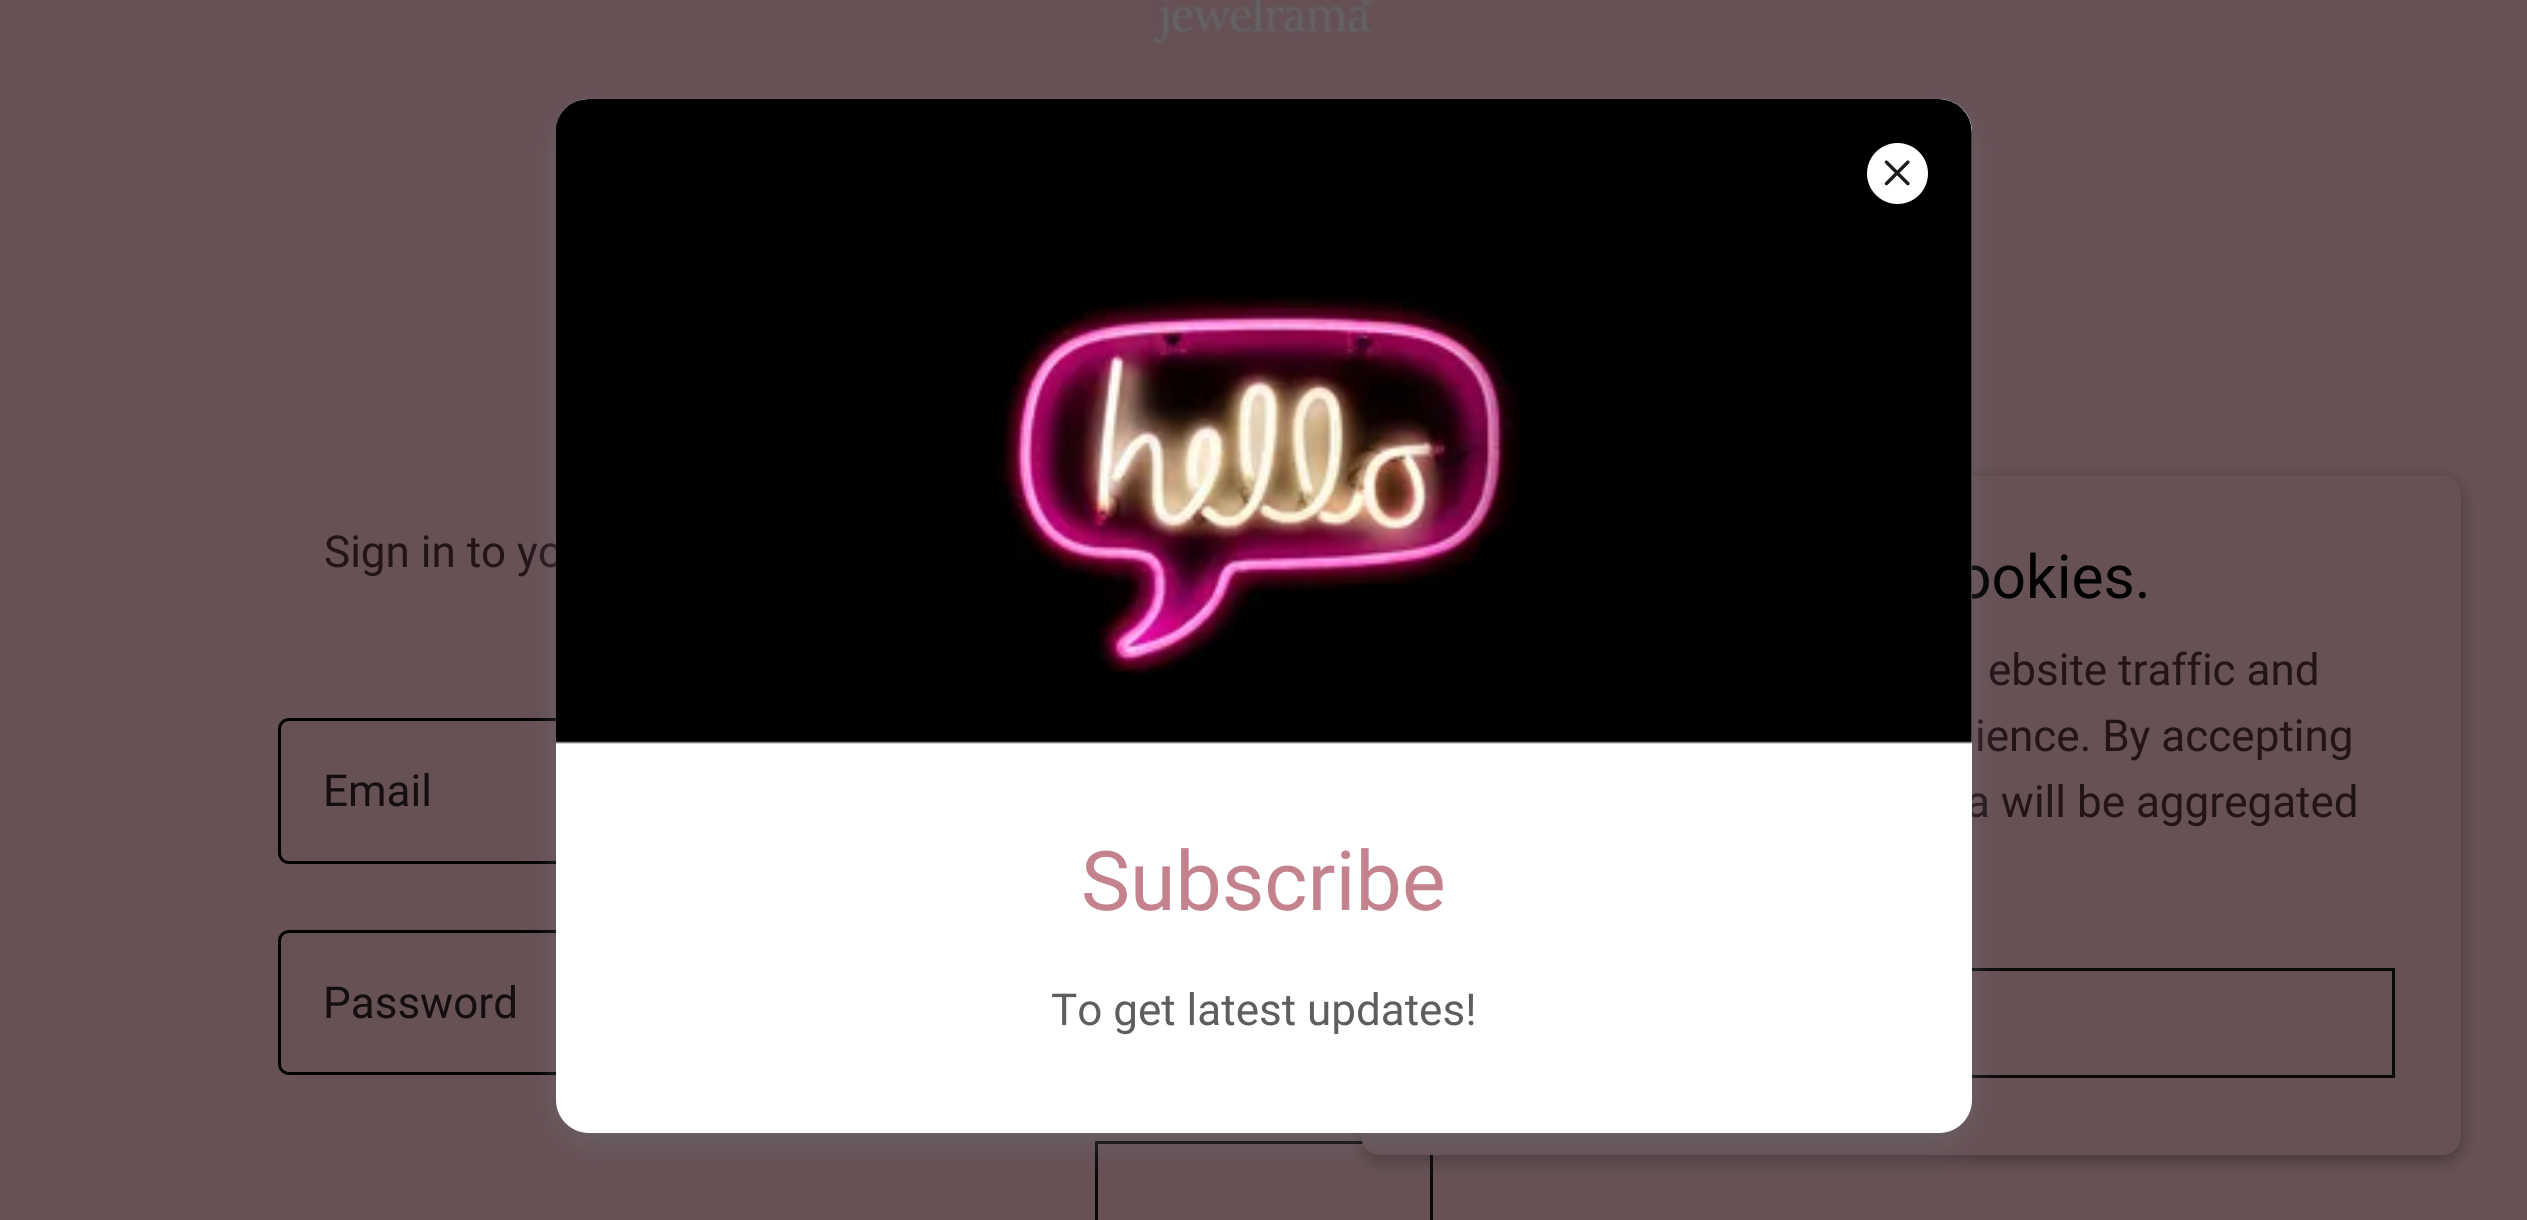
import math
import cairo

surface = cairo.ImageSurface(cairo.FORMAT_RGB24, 2527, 1220)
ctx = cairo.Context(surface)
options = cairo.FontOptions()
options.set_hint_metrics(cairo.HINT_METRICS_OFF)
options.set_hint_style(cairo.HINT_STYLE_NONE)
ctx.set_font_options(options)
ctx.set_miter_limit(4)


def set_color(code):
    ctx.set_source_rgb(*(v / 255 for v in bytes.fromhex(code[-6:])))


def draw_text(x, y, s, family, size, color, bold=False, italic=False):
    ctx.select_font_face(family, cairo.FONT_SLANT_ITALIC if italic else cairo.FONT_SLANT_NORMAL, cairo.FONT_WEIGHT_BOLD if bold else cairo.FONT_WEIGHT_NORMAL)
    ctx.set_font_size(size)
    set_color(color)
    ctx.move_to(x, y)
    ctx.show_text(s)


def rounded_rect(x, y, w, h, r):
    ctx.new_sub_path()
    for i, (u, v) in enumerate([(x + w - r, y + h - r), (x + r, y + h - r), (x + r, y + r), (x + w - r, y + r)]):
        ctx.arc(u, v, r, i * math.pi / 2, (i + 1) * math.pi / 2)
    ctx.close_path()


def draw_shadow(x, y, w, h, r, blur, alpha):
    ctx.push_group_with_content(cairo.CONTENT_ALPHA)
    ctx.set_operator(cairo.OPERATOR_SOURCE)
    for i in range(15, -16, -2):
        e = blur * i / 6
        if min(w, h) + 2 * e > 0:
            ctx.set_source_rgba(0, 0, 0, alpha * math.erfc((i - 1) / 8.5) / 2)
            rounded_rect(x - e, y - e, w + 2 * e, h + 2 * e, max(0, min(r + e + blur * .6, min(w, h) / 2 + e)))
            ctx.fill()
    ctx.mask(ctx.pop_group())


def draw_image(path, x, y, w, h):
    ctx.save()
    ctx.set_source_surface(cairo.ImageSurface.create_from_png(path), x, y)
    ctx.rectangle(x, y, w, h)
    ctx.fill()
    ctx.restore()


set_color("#665155")
ctx.paint()
draw_image("assets/img1.png", 1152, 0, 221, 44)
draw_text(324, 567, "Sign in to yo", "Roboto", 44, "#231418")
rounded_rect(279.5, 719.5, 1969, 143, 9.5)
set_color("#000000")
ctx.set_line_width(3)
ctx.stroke()
draw_text(323, 806, "Email", "Roboto", 44, "#150e10")
rounded_rect(279.5, 931.5, 1969, 142, 9.5)
set_color("#000000")
ctx.stroke()
draw_text(323, 1018, "Password", "Roboto", 44, "#150e10")
ctx.rectangle(1096.5, 1142.5, 335, 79)
set_color("#090909")
ctx.stroke()
set_color("#000000")
draw_shadow(1361, 481, 1100, 680, 19, 8, 0.3)
set_color("#665155")
rounded_rect(1361, 476, 1100, 679, 19)
ctx.fill()
draw_text(1957, 598, "ookies.", "Roboto", 60.5, "#000000")
draw_text(1988, 685, "ebsite traffic and", "Roboto", 44, "#231418")
draw_text(1975, 751, "ience. By accepting", "Roboto", 44, "#231418")
draw_text(1966, 817, "a will be aggregated", "Roboto", 44, "#231418")
ctx.rectangle(1428.5, 969.5, 965, 107)
set_color("#090909")
ctx.stroke()
set_color("#757575")
draw_shadow(556, 110, 1416, 1034, 33, 16.5, 0.4)
set_color("#ffffff")
rounded_rect(556, 99, 1416, 1034, 33)
ctx.fill()
draw_image("assets/img3.png", 556, 99, 1416, 645)
ctx.arc(1897.5, 173.5, 30.5, 0, 2 * math.pi)
ctx.fill()
draw_image("assets/img2.png", 1884, 160, 26, 26)
draw_text(1081, 910, "Subscribe", "Roboto", 82.5, "#c4828e")
draw_text(1051, 1025, "To get latest updates!", "Roboto", 44, "#5e5e5e")
surface.write_to_png("output.png")
